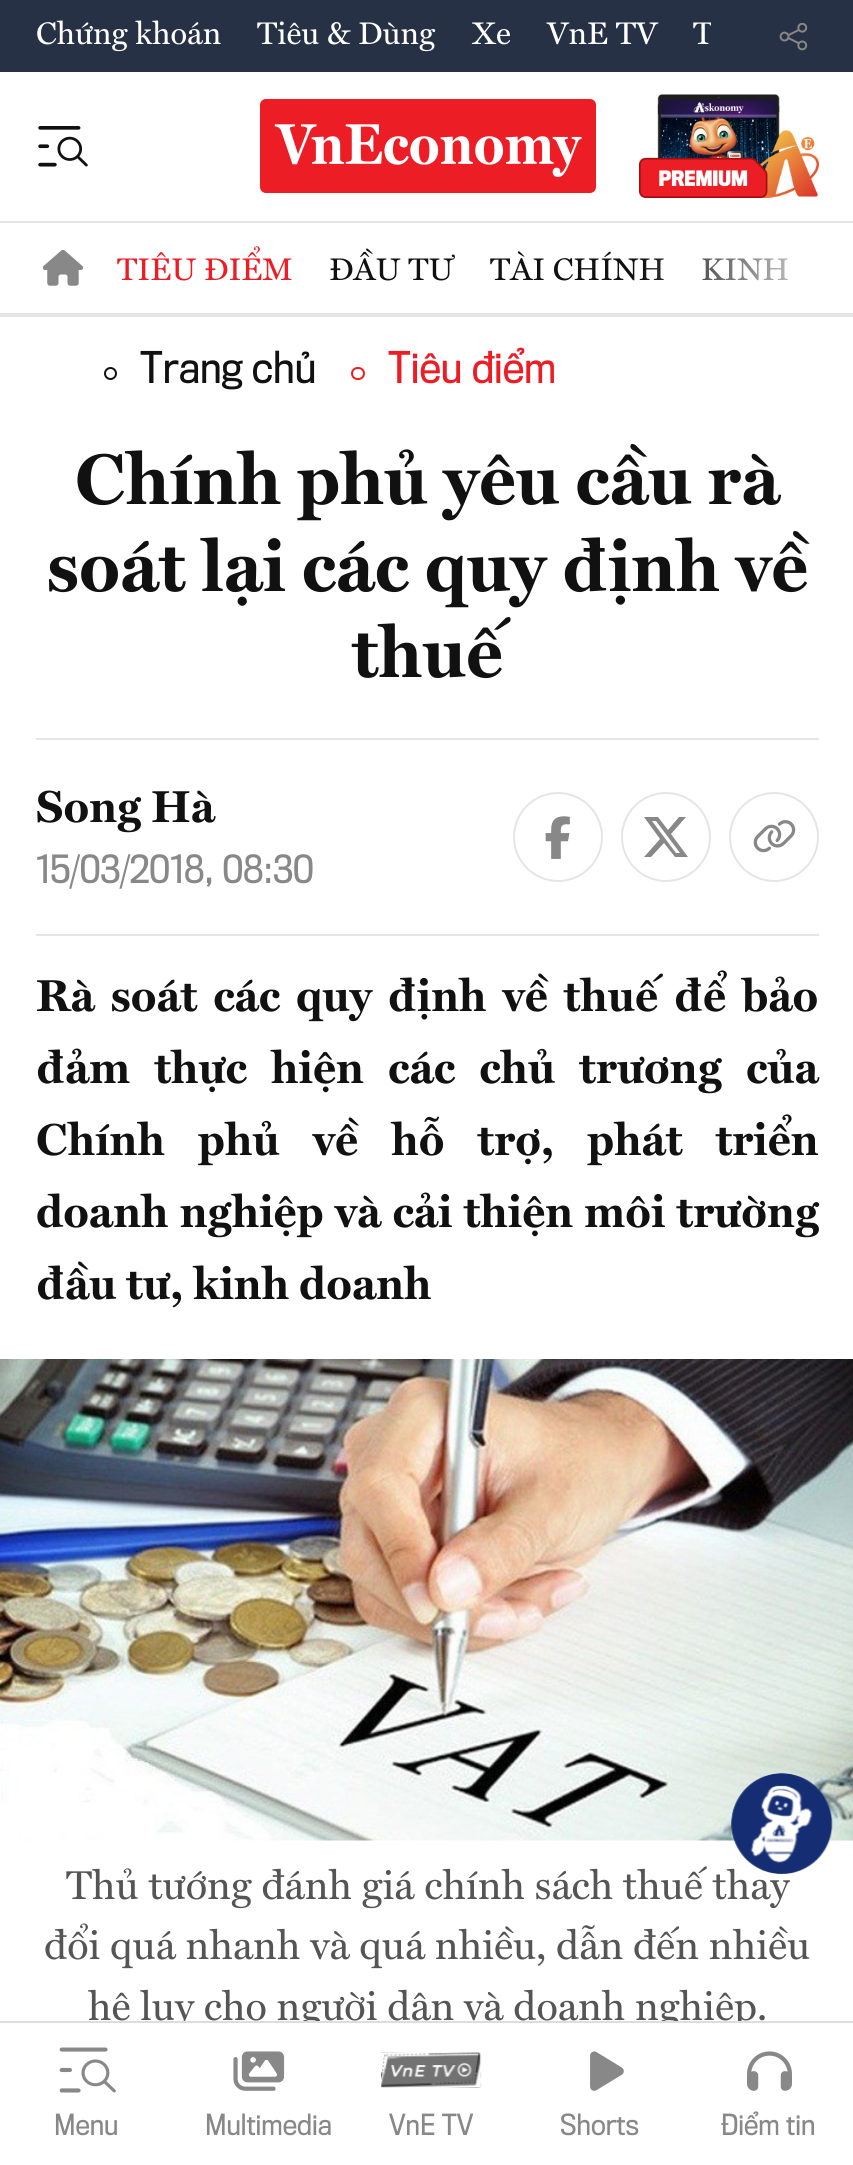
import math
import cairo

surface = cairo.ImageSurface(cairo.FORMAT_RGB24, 853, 2165)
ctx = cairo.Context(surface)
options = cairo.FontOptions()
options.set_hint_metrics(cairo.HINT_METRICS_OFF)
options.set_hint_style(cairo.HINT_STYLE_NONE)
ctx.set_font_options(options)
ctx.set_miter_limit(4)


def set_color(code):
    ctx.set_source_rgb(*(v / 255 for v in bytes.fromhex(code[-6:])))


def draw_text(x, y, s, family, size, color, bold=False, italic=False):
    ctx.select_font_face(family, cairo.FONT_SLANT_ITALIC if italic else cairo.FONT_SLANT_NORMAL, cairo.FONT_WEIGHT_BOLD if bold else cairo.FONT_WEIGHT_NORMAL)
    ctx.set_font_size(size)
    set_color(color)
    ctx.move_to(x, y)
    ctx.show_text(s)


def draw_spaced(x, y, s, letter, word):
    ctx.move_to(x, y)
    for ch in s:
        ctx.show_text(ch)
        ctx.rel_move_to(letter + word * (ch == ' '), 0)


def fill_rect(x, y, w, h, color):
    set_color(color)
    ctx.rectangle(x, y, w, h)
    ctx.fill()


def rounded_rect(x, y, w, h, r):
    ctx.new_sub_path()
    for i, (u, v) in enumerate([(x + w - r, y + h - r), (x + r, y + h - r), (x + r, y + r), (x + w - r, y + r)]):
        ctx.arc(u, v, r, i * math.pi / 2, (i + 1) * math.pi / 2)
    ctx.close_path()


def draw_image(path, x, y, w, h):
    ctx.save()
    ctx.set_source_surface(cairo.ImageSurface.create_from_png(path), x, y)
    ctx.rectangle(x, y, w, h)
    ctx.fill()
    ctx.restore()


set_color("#ffffff")
ctx.paint()
fill_rect(0, 0, 853, 72, "#263145")
draw_text(36, 44, "Chứng khoán", "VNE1", 31.5, "#ffffff")
draw_text(257, 44, "Tiêu & Dùng", "VNE1", 31.5, "#ffffff")
draw_text(472, 44, "Xe", "VNE1", 31.5, "#ffffff")
draw_text(547, 44, "VnE TV", "VNE1", 31.5, "#ffffff")
ctx.save()
ctx.rectangle(0, 0, 711, 72)
ctx.clip()
draw_text(693, 44, "T", "VNE1", 31.5, "#ffffff")
ctx.restore()
draw_image("assets/img1.png", 779, 23, 29, 28)
draw_image("assets/img2.png", 38, 126, 50, 41)
draw_image("assets/img3.png", 260, 99, 336, 94)
draw_image("assets/img4.png", 639, 94, 180, 104)
fill_rect(0, 221, 853, 2, "#e5e5e5")
draw_image("assets/img5.png", 43, 250, 40, 36)
draw_text(117, 280, "TIÊU ĐIỂM", "VNE1", 31.5, "#ed1d26")
draw_text(329, 280, "ĐẦU TƯ", "VNE1", 31.5, "#111111")
draw_text(490, 280, "TÀI CHÍNH", "VNE1", 31.5, "#111111")
draw_text(701, 280, "KINH", "VNE1", 31.5, "#111111")
gradient = cairo.LinearGradient(639, 268, 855, 268)
gradient.add_color_stop_rgba(0, 1, 1, 1, 0)
gradient.add_color_stop_rgba(1, 1, 1, 1, 1)
ctx.set_source(gradient)
ctx.rectangle(644, 258, 144, 23)
ctx.fill()
draw_text(88, 2020, "hệ lụy cho người dân và doanh nghiệp.", "VNE1", 40.5, "#555555")
fill_rect(119, 2023, 627, 7, "#ffffff")
fill_rect(0, 2021, 853, 2, "#dddddd")
draw_image("assets/img6.png", 59, 2047, 57, 46)
draw_text(54, 2135, "Menu", "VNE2", 27, "#888888")
draw_image("assets/img7.png", 233, 2051, 52, 40)
draw_text(205, 2135, "Multimedia", "VNE2", 27, "#888888")
draw_image("assets/img8.png", 381, 2052, 101, 36)
draw_text(389, 2135, "VnE TV", "VNE2", 27, "#888888")
draw_image("assets/img9.png", 590, 2051, 34, 40)
draw_text(560, 2135, "Shorts", "VNE2", 27, "#888888")
draw_image("assets/img10.png", 747, 2051, 45, 40)
draw_text(721, 2135, "Điểm tin", "VNE2", 27, "#888888")
fill_rect(0, 313, 853, 4, "#e5e5e5")
ctx.new_path()
ctx.arc(110.5, 373.5, 5.5, 0, 2 * math.pi)
set_color("#111111")
ctx.stroke()
draw_text(140, 383, "Trang chủ", "VNE2", 40.5, "#111111")
rounded_rect(352, 368, 12, 11, 5.5)
set_color("#ed1d26")
ctx.stroke()
draw_text(388, 383, "Tiêu điểm", "VNE2", 40.5, "#ed1d26")
draw_text(75, 504, "Chính phủ yêu cầu rà", "VNE1", 72, "#111111", bold=True)
draw_text(47, 591, "soát lại các quy định về", "VNE1", 72, "#111111", bold=True)
draw_text(352, 677, "thuế", "VNE1", 72, "#111111", bold=True)
fill_rect(36, 738, 783, 2, "#e5e5e5")
fill_rect(36, 934, 783, 2, "#e5e5e5")
draw_text(36, 822, "Song Hà", "VNE1", 45, "#111111", bold=True)
draw_text(36, 883, "15/03/2018, 08:30", "VNE2", 36, "#888888")
ctx.new_path()
ctx.arc(558, 837, 44, 0, 2 * math.pi)
set_color("#e5e5e5")
ctx.stroke()
draw_image("assets/img11.png", 545, 816, 25, 43)
ctx.arc(666, 837, 44, 0, 2 * math.pi)
ctx.stroke()
set_color("#888888")
ctx.new_path()
ctx.move_to(679, 817)
ctx.line_to(686, 817)
ctx.line_to(671, 834)
ctx.line_to(688, 857)
ctx.line_to(675, 857)
ctx.line_to(664, 843)
ctx.line_to(651, 857)
ctx.line_to(644, 857)
ctx.line_to(660, 839)
ctx.line_to(644, 817)
ctx.line_to(658, 817)
ctx.line_to(668, 830)
ctx.close_path()
ctx.move_to(676, 853)
ctx.line_to(680, 853)
ctx.line_to(656, 821)
ctx.line_to(652, 821)
ctx.close_path()
ctx.fill()
ctx.arc(774, 837, 44, 0, 2 * math.pi)
set_color("#e5e5e5")
ctx.stroke()
draw_image("assets/img12.png", 753, 820, 43, 33)
ctx.select_font_face("VNE1", cairo.FONT_SLANT_NORMAL, cairo.FONT_WEIGHT_BOLD)
ctx.set_font_size(45)
set_color("#111111")
draw_spaced(36, 1011, "Rà soát các quy định về thuế để bảo", 0, 6)
draw_spaced(36, 1083, "đảm thực hiện các chủ trương của", 0, 14.25)
draw_spaced(36, 1155, "Chính phủ về hỗ trợ, phát triển", 0, 23.25)
draw_spaced(36, 1227, "doanh nghiệp và cải thiện môi trường", 0, 1.25)
draw_text(36, 1299, "đầu tư, kinh doanh", "VNE1", 45, "#111111", bold=True)
draw_image("assets/img13.png", 0, 1359, 853, 482)
draw_text(66, 1899, "Thủ tướng đánh giá chính sách thuế thay", "VNE1", 40.5, "#555555")
draw_text(44, 1959, "đổi quá nhanh và quá nhiều, dẫn đến nhiều", "VNE1", 40.5, "#555555")
draw_image("assets/img14.png", 731, 1773, 102, 101)
surface.write_to_png("output.png")
